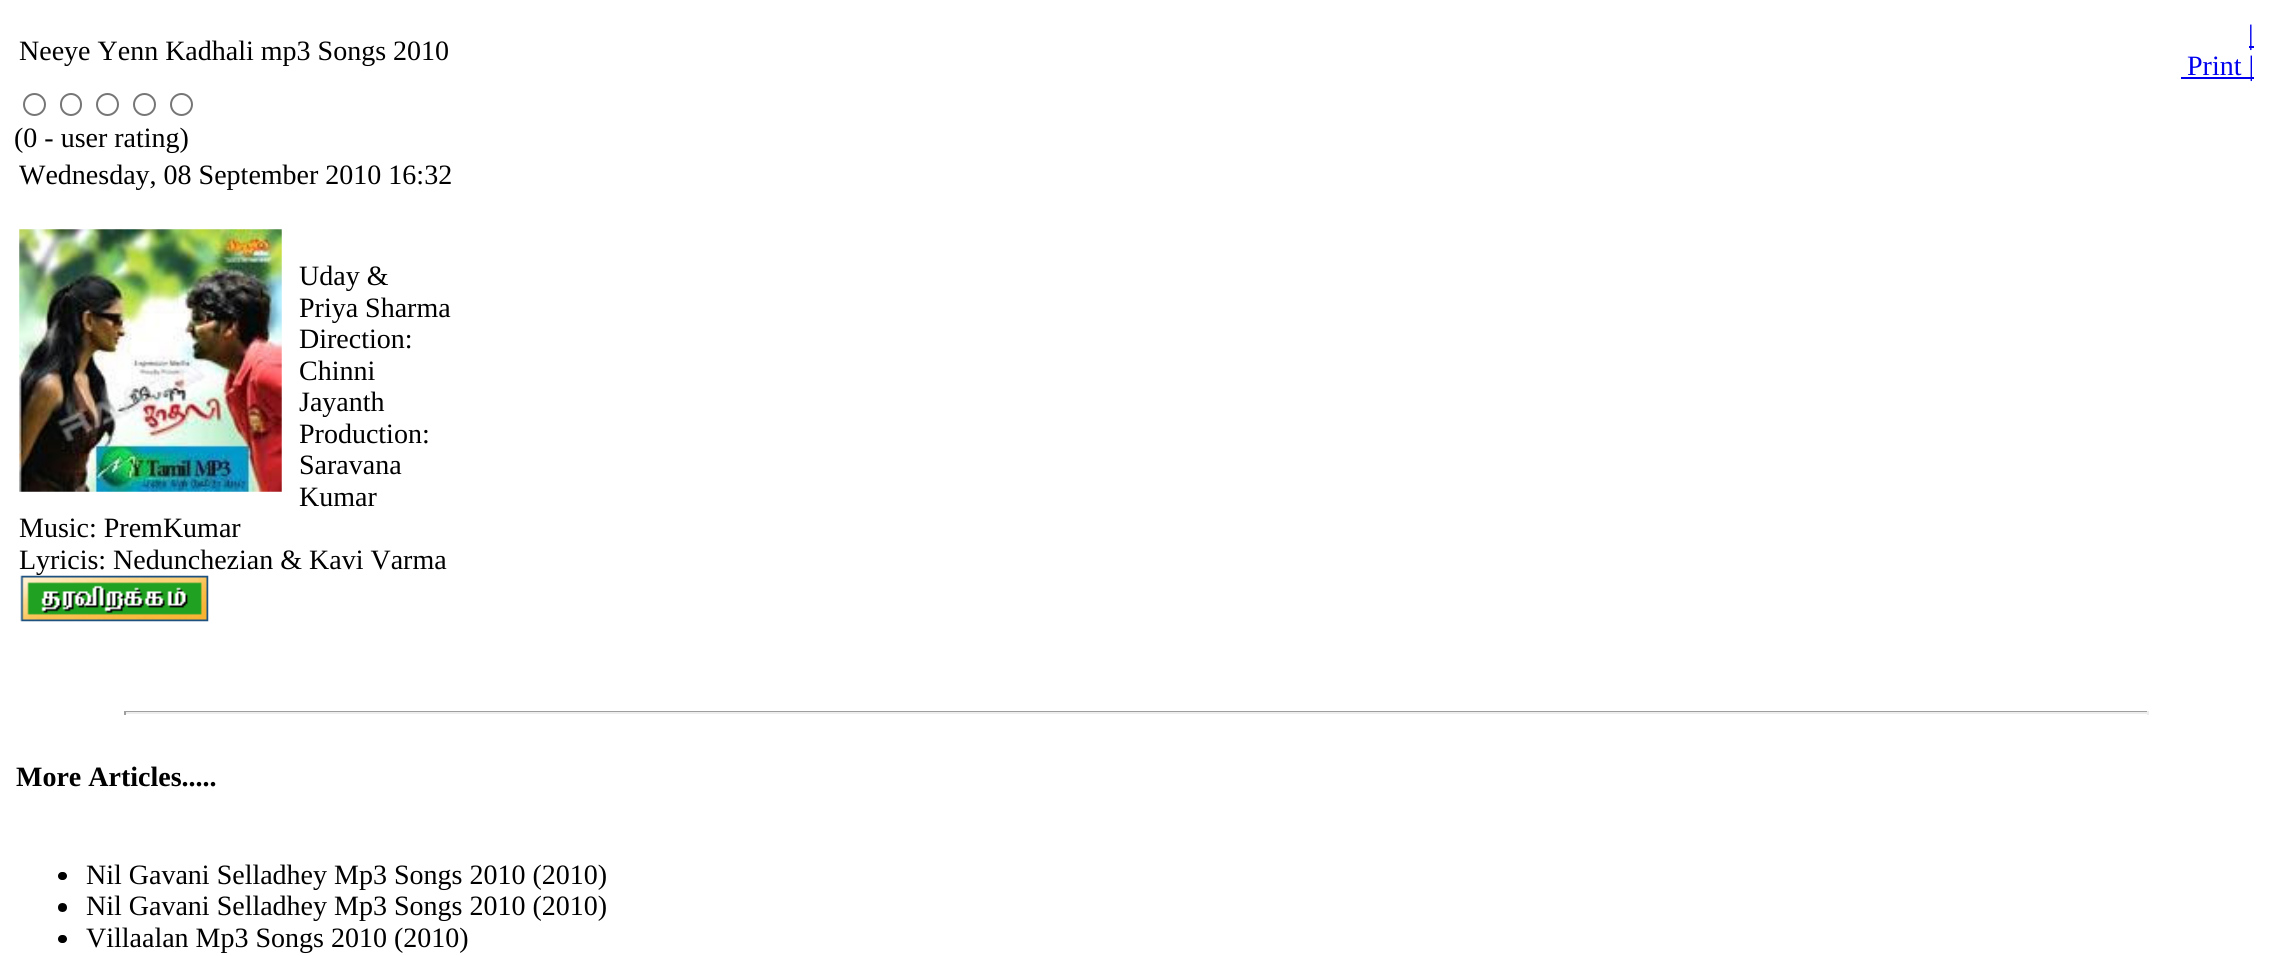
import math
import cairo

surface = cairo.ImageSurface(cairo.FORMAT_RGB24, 2272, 956)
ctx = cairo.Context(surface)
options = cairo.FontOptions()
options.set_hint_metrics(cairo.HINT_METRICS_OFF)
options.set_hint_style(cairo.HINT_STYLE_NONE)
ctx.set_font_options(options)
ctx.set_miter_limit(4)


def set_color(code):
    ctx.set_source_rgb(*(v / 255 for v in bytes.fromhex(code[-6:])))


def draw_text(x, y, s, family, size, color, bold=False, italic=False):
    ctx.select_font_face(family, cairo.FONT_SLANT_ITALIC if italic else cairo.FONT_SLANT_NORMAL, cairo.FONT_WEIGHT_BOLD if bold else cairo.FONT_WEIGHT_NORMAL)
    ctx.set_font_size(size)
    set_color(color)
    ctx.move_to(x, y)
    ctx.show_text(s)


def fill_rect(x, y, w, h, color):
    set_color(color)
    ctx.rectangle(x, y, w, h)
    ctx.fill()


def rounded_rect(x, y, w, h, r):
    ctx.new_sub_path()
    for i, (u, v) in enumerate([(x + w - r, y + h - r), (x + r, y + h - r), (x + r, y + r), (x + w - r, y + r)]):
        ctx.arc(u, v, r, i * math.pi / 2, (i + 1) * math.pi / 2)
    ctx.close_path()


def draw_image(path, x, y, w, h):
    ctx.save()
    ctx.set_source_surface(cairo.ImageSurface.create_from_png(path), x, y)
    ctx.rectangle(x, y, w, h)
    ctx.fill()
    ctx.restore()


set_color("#ffffff")
ctx.paint()
draw_text(19, 60, "Neeye Yenn Kadhali mp3 Songs 2010", "Liberation Serif", 28, "#000000")
fill_rect(2249, 46, 5, 2, "#0000ee")
draw_text(2248, 44, "|", "Liberation Serif", 28, "#0000ee")
fill_rect(2181, 77, 73, 2, "#0000ee")
draw_text(2187, 75, "Print |", "Liberation Serif", 28, "#0000ee")
ctx.new_path()
ctx.arc(34.5, 104.5, 10.5, 0, 2 * math.pi)
set_color("#767676")
ctx.stroke()
rounded_rect(61, 94, 20, 21, 10)
ctx.stroke()
ctx.arc(107.5, 104.5, 10.5, 0, 2 * math.pi)
ctx.stroke()
ctx.arc(144.5, 104.5, 10.5, 0, 2 * math.pi)
ctx.stroke()
ctx.arc(181.5, 104.5, 10.5, 0, 2 * math.pi)
ctx.stroke()
draw_text(14, 147, "(0 - user rating)", "Liberation Serif", 28, "#000000")
draw_text(19, 184, "Wednesday, 08 September 2010 16:32", "Liberation Serif", 28, "#000000")
draw_image("assets/img1.png", 19, 229, 263, 263)
draw_text(299, 285, "Uday &", "Liberation Serif", 28, "#000000")
draw_text(299, 317, "Priya Sharma", "Liberation Serif", 28, "#000000")
draw_text(299, 348, "Direction:", "Liberation Serif", 28, "#000000")
draw_text(299, 380, "Chinni", "Liberation Serif", 28, "#000000")
draw_text(299, 411, "Jayanth", "Liberation Serif", 28, "#000000")
draw_text(299, 443, "Production:", "Liberation Serif", 28, "#000000")
draw_text(299, 474, "Saravana", "Liberation Serif", 28, "#000000")
draw_text(299, 506, "Kumar", "Liberation Serif", 28, "#000000")
draw_text(19, 537, "Music: PremKumar", "Liberation Serif", 28, "#000000")
draw_text(19, 569, "Lyricis: Nedunchezian & Kavi Varma", "Liberation Serif", 28, "#000000")
draw_image("assets/img2.png", 20, 575, 189, 47)
fill_rect(124, 711, 2025, 1, "#9f9f9f")
fill_rect(2147, 711, 2, 4, "#eeeeee")
fill_rect(124, 712, 2025, 2, "#eeeeee")
fill_rect(124, 711, 2, 4, "#9f9f9f")
draw_text(16, 786, "More Articles.....", "Liberation Serif", 28, "#000000", bold=True)
rounded_rect(58, 872, 9, 8, 4)
ctx.fill()
draw_text(86, 884, "Nil Gavani Selladhey Mp3 Songs 2010 (2010)", "Liberation Serif", 28, "#000000")
ctx.new_path()
ctx.arc(62.5, 907.5, 4.5, 0, 2 * math.pi)
ctx.fill()
draw_text(86, 915, "Nil Gavani Selladhey Mp3 Songs 2010 (2010)", "Liberation Serif", 28, "#000000")
rounded_rect(58, 935, 9, 8, 4)
ctx.fill()
draw_text(86, 947, "Villaalan Mp3 Songs 2010 (2010)", "Liberation Serif", 28, "#000000")
surface.write_to_png("output.png")
